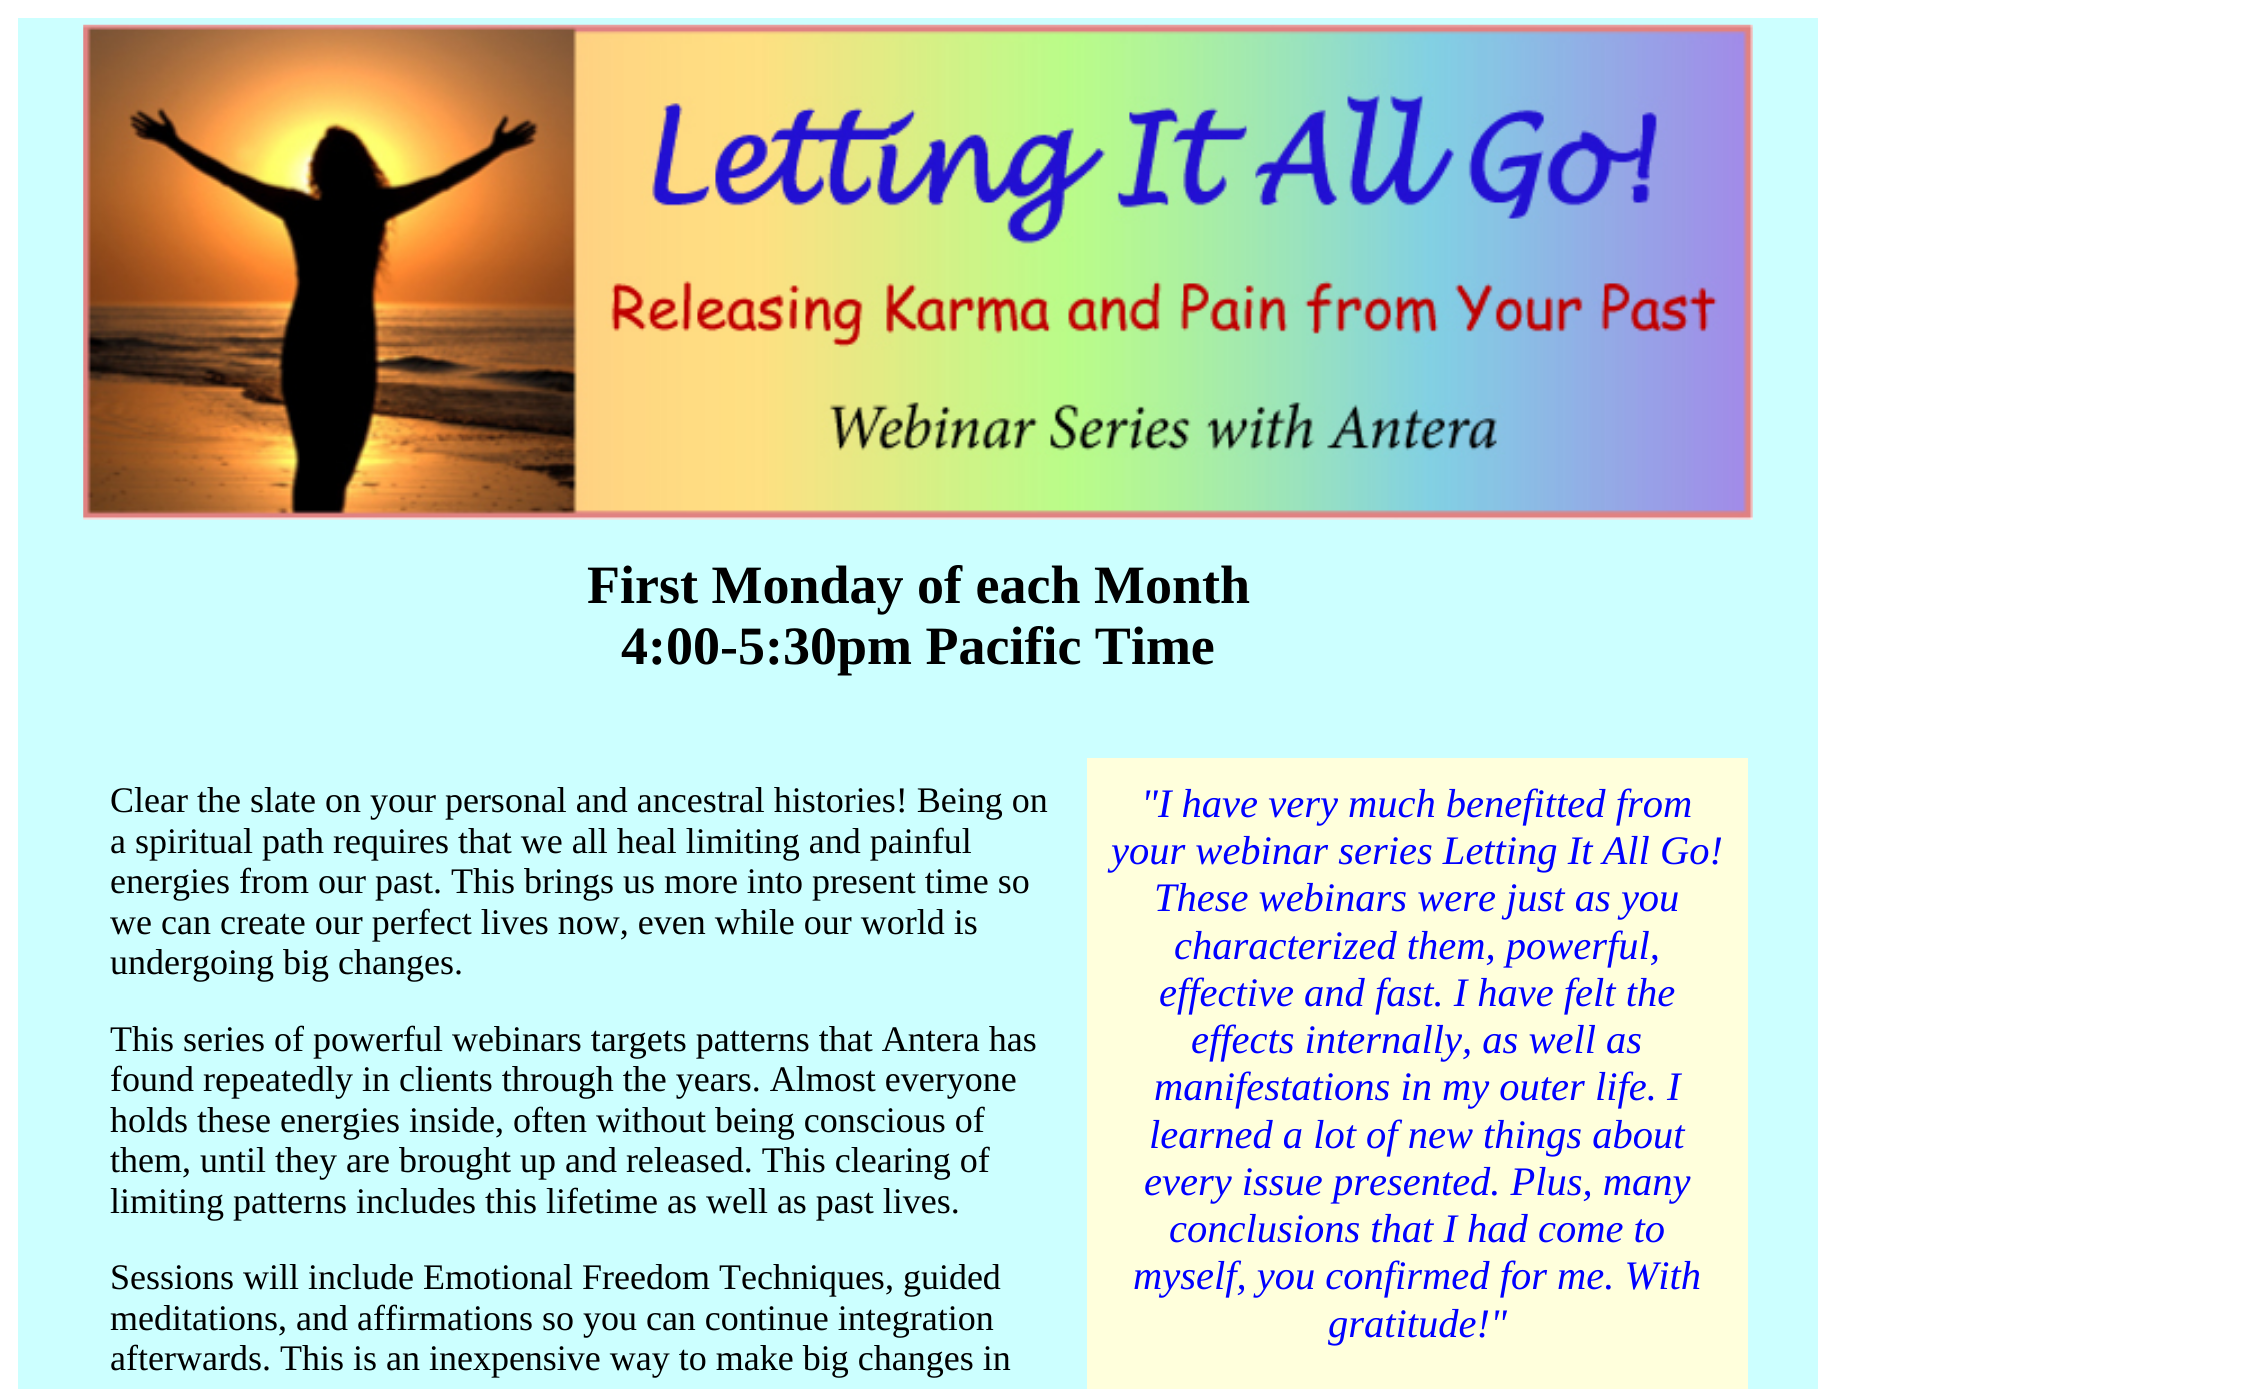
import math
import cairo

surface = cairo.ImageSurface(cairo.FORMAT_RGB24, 2255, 1389)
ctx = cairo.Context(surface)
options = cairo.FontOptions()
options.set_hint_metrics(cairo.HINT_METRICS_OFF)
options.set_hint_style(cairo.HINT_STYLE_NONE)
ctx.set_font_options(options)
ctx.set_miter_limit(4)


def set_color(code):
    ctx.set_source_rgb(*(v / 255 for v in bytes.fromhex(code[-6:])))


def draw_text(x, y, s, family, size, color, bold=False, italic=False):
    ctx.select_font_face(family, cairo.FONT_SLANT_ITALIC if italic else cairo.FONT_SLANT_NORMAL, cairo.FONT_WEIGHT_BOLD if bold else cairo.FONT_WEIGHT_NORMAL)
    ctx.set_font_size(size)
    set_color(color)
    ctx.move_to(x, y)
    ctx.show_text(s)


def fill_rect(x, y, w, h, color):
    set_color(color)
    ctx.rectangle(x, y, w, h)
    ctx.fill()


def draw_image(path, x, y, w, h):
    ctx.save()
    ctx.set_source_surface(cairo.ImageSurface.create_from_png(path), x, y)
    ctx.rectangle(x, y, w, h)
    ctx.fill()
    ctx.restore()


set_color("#ffffff")
ctx.paint()
fill_rect(18, 18, 1800, 1371, "#ccffff")
draw_image("assets/img1.png", 83, 24, 1670, 496)
draw_text(587, 603, "First Monday of each Month", "Liberation Serif", 54, "#000000", bold=True)
draw_text(621, 664, "4:00-5:30pm Pacific Time", "Liberation Serif", 54, "#000000", bold=True)
draw_text(110, 812, "Clear the slate on your personal and ancestral histories! Being on", "Liberation Serif", 36, "#000000")
draw_text(110, 853, "a spiritual path requires that we all heal limiting and painful", "Liberation Serif", 36, "#000000")
draw_text(110, 893, "energies from our past. This brings us more into present time so", "Liberation Serif", 36, "#000000")
draw_text(110, 934, "we can create our perfect lives now, even while our world is", "Liberation Serif", 36, "#000000")
draw_text(110, 974, "undergoing big changes.", "Liberation Serif", 36, "#000000")
draw_text(110, 1051, "This series of powerful webinars targets patterns that Antera has", "Liberation Serif", 36, "#000000")
draw_text(110, 1091, "found repeatedly in clients through the years. Almost everyone", "Liberation Serif", 36, "#000000")
draw_text(110, 1132, "holds these energies inside, often without being conscious of", "Liberation Serif", 36, "#000000")
draw_text(110, 1172, "them, until they are brought up and released. This clearing of", "Liberation Serif", 36, "#000000")
draw_text(110, 1213, "limiting patterns includes this lifetime as well as past lives.", "Liberation Serif", 36, "#000000")
draw_text(110, 1289, "Sessions will include Emotional Freedom Techniques, guided", "Liberation Serif", 36, "#000000")
draw_text(110, 1330, "meditations, and affirmations so you can continue integration", "Liberation Serif", 36, "#000000")
draw_text(110, 1370, "afterwards. This is an inexpensive way to make big changes in", "Liberation Serif", 36, "#000000")
fill_rect(1087, 758, 661, 631, "#ffffdc")
draw_text(1141, 817, "\"I have very much benefitted from", "Liberation Serif", 40.5, "#0000ff", italic=True)
draw_text(1111, 864, "your webinar series Letting It All Go!", "Liberation Serif", 40.5, "#0000ff", italic=True)
draw_text(1154, 911, "These webinars were just as you", "Liberation Serif", 40.5, "#0000ff", italic=True)
draw_text(1174, 959, "characterized them, powerful,", "Liberation Serif", 40.5, "#0000ff", italic=True)
draw_text(1159, 1006, "effective and fast. I have felt the", "Liberation Serif", 40.5, "#0000ff", italic=True)
draw_text(1191, 1053, "effects internally, as well as", "Liberation Serif", 40.5, "#0000ff", italic=True)
draw_text(1154, 1100, "manifestations in my outer life. I", "Liberation Serif", 40.5, "#0000ff", italic=True)
draw_text(1149, 1148, "learned a lot of new things about", "Liberation Serif", 40.5, "#0000ff", italic=True)
draw_text(1144, 1195, "every issue presented. Plus, many", "Liberation Serif", 40.5, "#0000ff", italic=True)
draw_text(1169, 1242, "conclusions that I had come to", "Liberation Serif", 40.5, "#0000ff", italic=True)
draw_text(1133, 1289, "myself, you confirmed for me. With", "Liberation Serif", 40.5, "#0000ff", italic=True)
draw_text(1328, 1337, "gratitude!\"", "Liberation Serif", 40.5, "#0000ff", italic=True)
surface.write_to_png("output.png")
